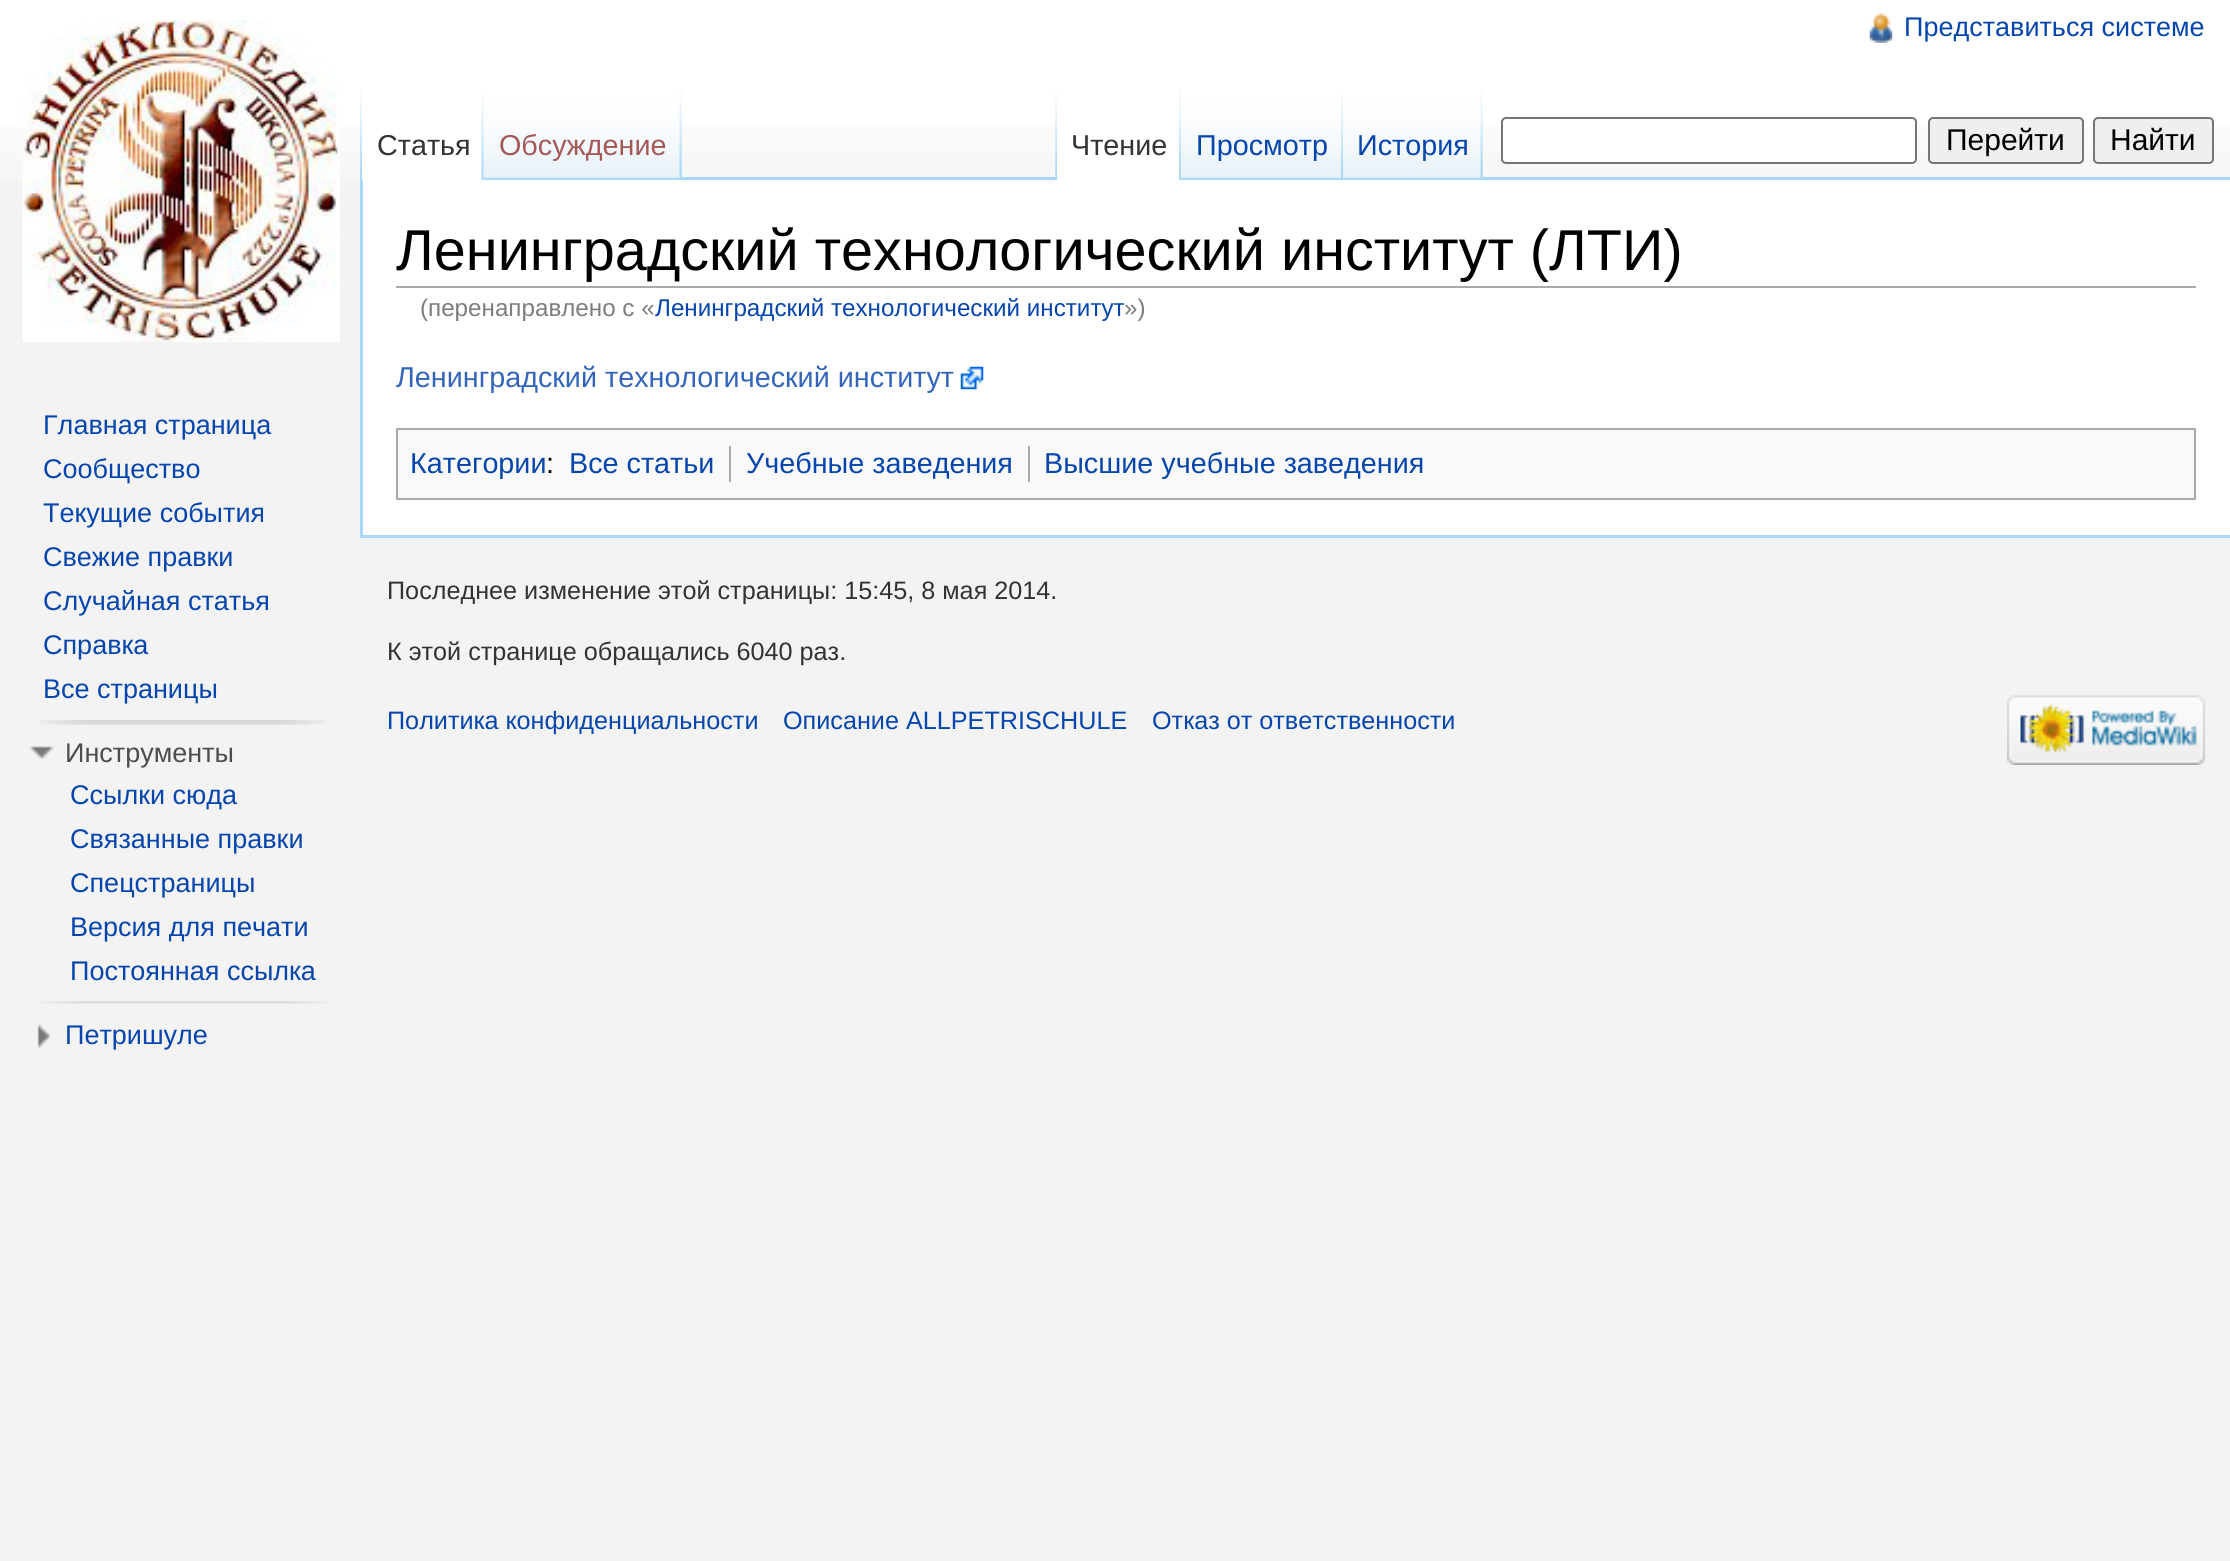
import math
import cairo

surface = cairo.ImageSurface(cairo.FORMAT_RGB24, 2230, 1561)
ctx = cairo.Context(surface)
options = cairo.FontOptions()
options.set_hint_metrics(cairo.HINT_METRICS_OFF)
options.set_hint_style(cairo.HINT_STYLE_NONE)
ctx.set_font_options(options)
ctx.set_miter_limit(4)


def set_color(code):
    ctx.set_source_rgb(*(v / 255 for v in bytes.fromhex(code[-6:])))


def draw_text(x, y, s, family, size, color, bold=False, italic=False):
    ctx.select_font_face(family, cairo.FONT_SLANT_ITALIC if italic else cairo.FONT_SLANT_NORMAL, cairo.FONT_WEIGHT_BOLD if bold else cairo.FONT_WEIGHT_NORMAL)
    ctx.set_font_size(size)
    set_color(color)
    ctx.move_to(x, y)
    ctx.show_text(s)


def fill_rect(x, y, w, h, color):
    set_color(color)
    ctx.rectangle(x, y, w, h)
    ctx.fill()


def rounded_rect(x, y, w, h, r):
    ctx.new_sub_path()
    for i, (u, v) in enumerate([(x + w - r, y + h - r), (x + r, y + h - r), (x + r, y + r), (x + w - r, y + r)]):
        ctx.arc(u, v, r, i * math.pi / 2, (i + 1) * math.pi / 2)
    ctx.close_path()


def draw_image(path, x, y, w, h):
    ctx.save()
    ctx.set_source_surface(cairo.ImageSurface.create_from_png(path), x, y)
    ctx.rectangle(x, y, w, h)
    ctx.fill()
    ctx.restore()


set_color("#f3f3f3")
ctx.paint()
fill_rect(0, 0, 2230, 127, "#ffffff")
draw_image("assets/img1.png", 0, 127, 2230, 53)
draw_image("assets/img2.png", 1869, 13, 24, 30)
draw_text(1904, 36, "Представиться системе", "Liberation Sans", 27, "#0645ad")
draw_image("assets/img3.png", 360, 90, 2, 87)
draw_image("assets/img4.png", 681, 90, 1, 87)
fill_rect(360, 177, 1870, 3, "#a7d7f9")
fill_rect(362, 127, 122, 53, "#ffffff")
draw_image("assets/img5.png", 481, 91, 3, 89)
draw_text(377, 155, "Статья", "Liberation Sans", 28.75, "#333333")
draw_image("assets/img6.png", 483, 90, 199, 90)
draw_image("assets/img7.png", 679, 91, 3, 89)
draw_text(499, 155, "Обсуждение", "Liberation Sans", 28.75, "#a55858")
draw_image("assets/img8.png", 1055, 90, 2, 87)
draw_image("assets/img4.png", 1482, 90, 1, 87)
fill_rect(1057, 127, 125, 53, "#ffffff")
draw_image("assets/img9.png", 1179, 91, 3, 89)
draw_text(1071, 155, "Чтение", "Liberation Sans", 28.75, "#333333")
draw_image("assets/img10.png", 1181, 90, 163, 90)
draw_image("assets/img11.png", 1341, 91, 3, 88)
draw_text(1196, 155, "Просмотр", "Liberation Sans", 28.75, "#0645ad")
draw_image("assets/img12.png", 1343, 90, 140, 90)
draw_image("assets/img7.png", 1480, 91, 3, 89)
draw_text(1357, 155, "История", "Liberation Sans", 28.75, "#0645ad")
set_color("#ffffff")
rounded_rect(1502, 118, 414, 45, 4)
ctx.fill_preserve()
set_color("#767676")
ctx.stroke()
set_color("#efefef")
rounded_rect(1929, 118, 154, 45, 4)
ctx.fill_preserve()
set_color("#767676")
ctx.stroke()
draw_text(1946, 150, "Перейти", "Liberation Sans", 30, "#000000")
set_color("#efefef")
rounded_rect(2094, 118, 119, 45, 4)
ctx.fill_preserve()
set_color("#767676")
ctx.stroke()
draw_text(2110, 150, "Найти", "Liberation Sans", 30, "#000000")
fill_rect(363, 180, 1867, 355, "#ffffff")
fill_rect(360, 180, 3, 356, "#a7d7f9")
fill_rect(396, 286, 1800, 2, "#aaaaaa")
draw_text(396, 270, "Ленинградский технологический институт (ЛТИ)", "Liberation Sans", 57.6, "#000000")
draw_text(420, 316, "(перенаправлено с «", "Liberation Sans", 24.2, "#7d7d7d")
draw_text(655, 316, "Ленинградский технологический институт", "Liberation Sans", 24.2, "#0645ad")
draw_text(1124, 316, "»)", "Liberation Sans", 24.2, "#7d7d7d")
draw_text(396, 387, "Ленинградский технологический институт", "Liberation Sans", 28.75, "#3366bb")
draw_image("assets/img13.png", 960, 366, 24, 24)
set_color("#f9f9f9")
ctx.rectangle(397, 429, 1798, 70)
ctx.fill_preserve()
set_color("#aaaaaa")
ctx.stroke()
draw_text(410, 473, "Категории", "Liberation Sans", 28.75, "#0645ad")
draw_text(546, 473, ":", "Liberation Sans", 28.75, "#000000")
draw_text(569, 473, "Все статьи", "Liberation Sans", 28.75, "#0645ad")
fill_rect(729, 446, 2, 36, "#aaaaaa")
draw_text(746, 473, "Учебные заведения", "Liberation Sans", 28.75, "#0645ad")
fill_rect(1028, 446, 2, 36, "#aaaaaa")
draw_text(1044, 473, "Высшие учебные заведения", "Liberation Sans", 28.75, "#0645ad")
draw_image("assets/img14.png", 22, 20, 318, 322)
draw_text(43, 434, "Главная страница", "Liberation Sans", 27, "#0645ad")
draw_text(43, 478, "Сообщество", "Liberation Sans", 27, "#0645ad")
draw_text(43, 522, "Текущие события", "Liberation Sans", 27, "#0645ad")
draw_text(43, 566, "Свежие правки", "Liberation Sans", 27, "#0645ad")
draw_text(43, 610, "Случайная статья", "Liberation Sans", 27, "#0645ad")
draw_text(43, 654, "Справка", "Liberation Sans", 27, "#0645ad")
draw_text(43, 698, "Все страницы", "Liberation Sans", 27, "#0645ad")
draw_image("assets/img15.png", 40, 720, 287, 5)
draw_image("assets/img16.png", 29, 746, 26, 13)
draw_text(65, 762, "Инструменты", "Liberation Sans", 27, "#4d4d4d")
draw_text(70, 804, "Ссылки сюда", "Liberation Sans", 27, "#0645ad")
draw_text(70, 848, "Связанные правки", "Liberation Sans", 27, "#0645ad")
draw_text(70, 892, "Спецстраницы", "Liberation Sans", 27, "#0645ad")
draw_text(70, 936, "Версия для печати", "Liberation Sans", 27, "#0645ad")
draw_text(70, 980, "Постоянная ссылка", "Liberation Sans", 27, "#0645ad")
draw_image("assets/img17.png", 40, 1001, 287, 3)
draw_image("assets/img18.png", 37, 1023, 14, 26)
draw_text(65, 1044, "Петришуле", "Liberation Sans", 27, "#0645ad")
fill_rect(360, 535, 1870, 3, "#a7d7f9")
draw_text(387, 599, "Последнее изменение этой страницы: 15:45, 8 мая 2014.", "Liberation Sans", 25.2, "#333333")
draw_text(387, 660, "К этой странице обращались 6040 раз.", "Liberation Sans", 25.2, "#333333")
draw_text(387, 729, "Политика конфиденциальности", "Liberation Sans", 25.2, "#0645ad")
draw_text(783, 729, "Описание ALLPETRISCHULE", "Liberation Sans", 25.2, "#0645ad")
draw_text(1152, 729, "Отказ от ответственности", "Liberation Sans", 25.2, "#0645ad")
draw_image("assets/img19.png", 2007, 695, 198, 70)
surface.write_to_png("output.png")
